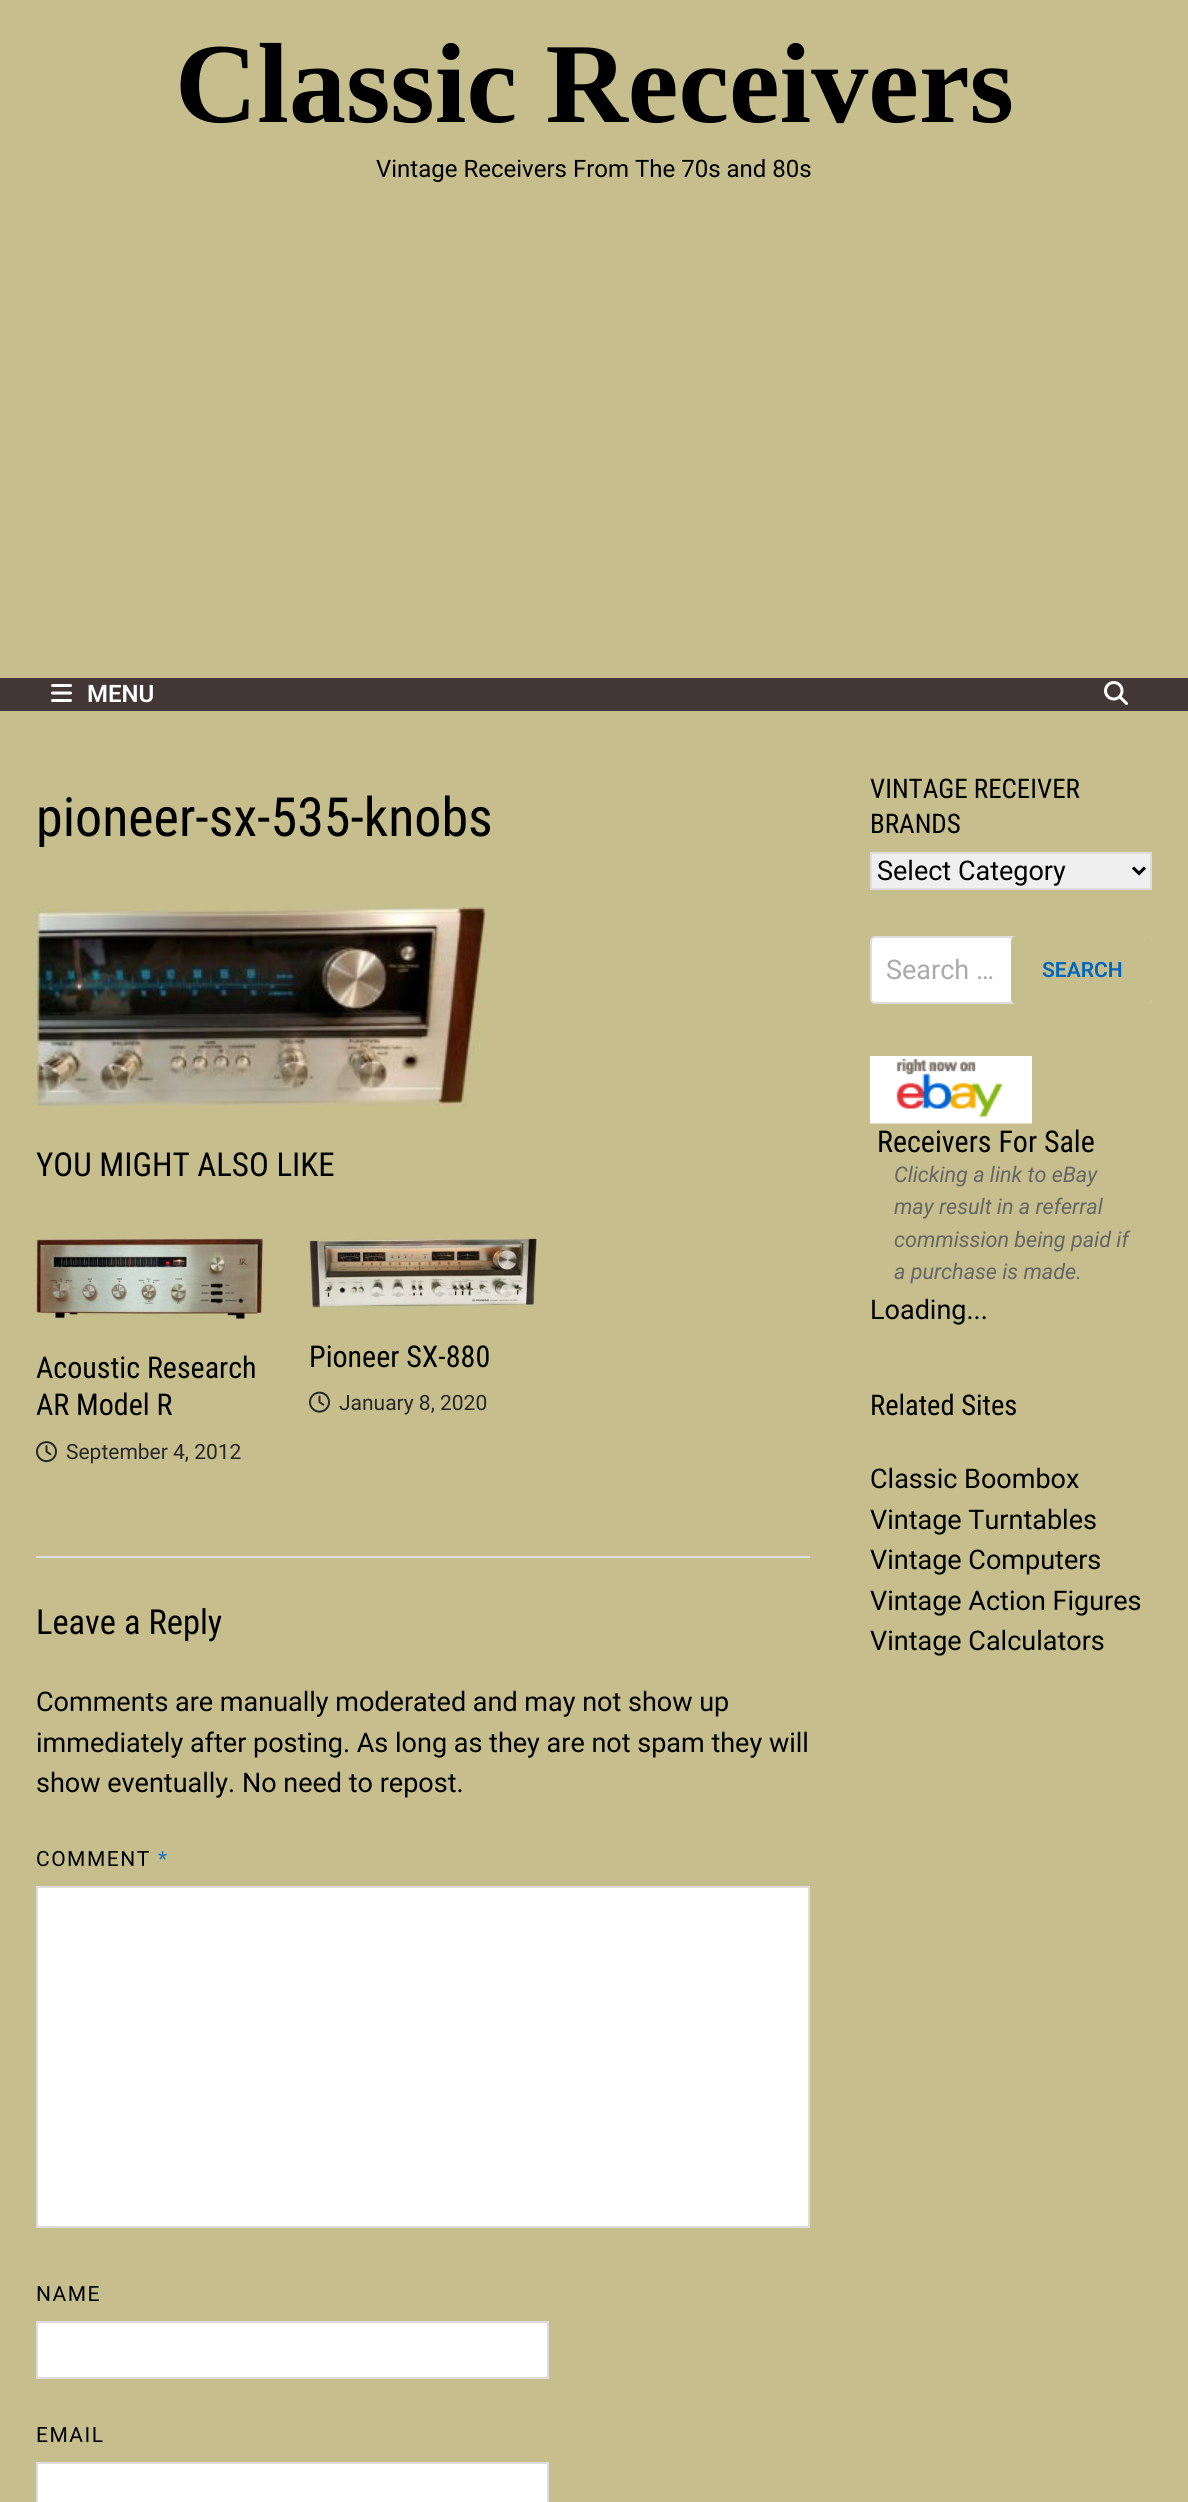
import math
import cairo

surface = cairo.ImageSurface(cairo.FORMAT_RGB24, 1188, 2502)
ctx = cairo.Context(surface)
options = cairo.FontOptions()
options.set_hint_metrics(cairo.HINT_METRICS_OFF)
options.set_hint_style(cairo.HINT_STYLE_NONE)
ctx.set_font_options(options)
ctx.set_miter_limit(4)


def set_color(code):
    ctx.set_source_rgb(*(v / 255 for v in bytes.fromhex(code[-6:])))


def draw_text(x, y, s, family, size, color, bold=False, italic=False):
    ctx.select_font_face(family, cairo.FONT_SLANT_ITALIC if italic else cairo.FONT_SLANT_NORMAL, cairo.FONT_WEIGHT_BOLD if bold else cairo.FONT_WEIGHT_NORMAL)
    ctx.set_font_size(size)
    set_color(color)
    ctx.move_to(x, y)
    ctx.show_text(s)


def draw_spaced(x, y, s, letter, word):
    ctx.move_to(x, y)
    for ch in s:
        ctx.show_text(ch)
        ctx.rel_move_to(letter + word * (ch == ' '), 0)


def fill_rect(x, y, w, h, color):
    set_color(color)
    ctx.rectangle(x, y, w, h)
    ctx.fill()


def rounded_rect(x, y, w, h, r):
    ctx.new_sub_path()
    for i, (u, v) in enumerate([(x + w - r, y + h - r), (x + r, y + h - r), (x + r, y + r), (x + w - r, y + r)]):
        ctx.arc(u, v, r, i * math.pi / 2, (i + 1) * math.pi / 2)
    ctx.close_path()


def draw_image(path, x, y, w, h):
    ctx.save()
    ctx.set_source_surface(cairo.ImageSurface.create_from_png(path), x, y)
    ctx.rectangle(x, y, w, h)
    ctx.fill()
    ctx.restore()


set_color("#c7be8d")
ctx.paint()
draw_text(175, 122, "Classic Receivers", "Liberation Serif", 114, "#000000", bold=True)
draw_text(376, 177, "Vintage Receivers From The 70s and 80s", "Roboto", 24, "#000000")
fill_rect(0, 678, 1188, 33, "#423736")
draw_image("assets/img1.png", 51, 684, 21, 18)
draw_text(87, 702, "MENU", "Roboto SemiBold", 24, "#ffffff")
draw_image("assets/img2.png", 1104, 681, 24, 24)
draw_text(36, 836, "pioneer-sx-535-knobs", "Roboto Condensed", 54, "#000000")
draw_image("assets/img3.png", 36, 907, 450, 199)
draw_text(36, 1176, "YOU MIGHT ALSO LIKE", "Roboto Condensed", 33, "#000000")
draw_image("assets/img4.png", 36, 1237, 228, 83)
draw_text(36, 1378, "Acoustic Research", "Roboto Condensed", 30, "#000000")
draw_text(36, 1415, "AR Model R", "Roboto Condensed", 30, "#000000")
draw_image("assets/img5.png", 36, 1441, 21, 22)
draw_text(66, 1459, "September 4, 2012", "Roboto", 21, "#282828")
draw_image("assets/img6.png", 309, 1237, 228, 71)
draw_text(309, 1367, "Pioneer SX-880", "Roboto Condensed", 30, "#000000")
draw_image("assets/img7.png", 309, 1391, 21, 22)
draw_text(339, 1410, "January 8, 2020", "Roboto", 21, "#282828")
fill_rect(36, 1556, 774, 2, "#dddddd")
draw_text(36, 1634, "Leave a Reply", "Roboto Condensed", 34.5, "#000000")
draw_text(36, 1711, "Comments are manually moderated and may not show up", "Roboto", 27, "#000000")
draw_text(36, 1752, "immediately after posting. As long as they are not spam they will", "Roboto", 27, "#000000")
draw_text(36, 1792, "show eventually. No need to repost.", "Roboto", 27, "#000000")
ctx.set_font_size(21)
draw_spaced(36, 1866, "COMMENT", 1.5, 0)
set_color("#1e73be")
draw_spaced(158, 1866, "*", 1.5, 0)
set_color("#ffffff")
ctx.rectangle(37, 1887, 772, 340)
ctx.fill_preserve()
set_color("#dddddd")
ctx.stroke()
set_color("#000000")
draw_spaced(36, 2301, "NAME", 1.5, 0)
set_color("#ffffff")
ctx.rectangle(37, 2322, 511, 56)
ctx.fill_preserve()
set_color("#dddddd")
ctx.stroke()
set_color("#000000")
draw_spaced(36, 2442, "EMAIL", 1.5, 0)
set_color("#ffffff")
ctx.rectangle(37, 2463, 511, 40)
ctx.fill_preserve()
set_color("#dddddd")
ctx.stroke()
draw_text(870, 798, "VINTAGE RECEIVER", "Roboto Condensed", 27, "#000000")
draw_text(870, 833, "BRANDS", "Roboto Condensed", 27, "#000000")
set_color("#efefef")
ctx.rectangle(871, 853, 280, 36)
ctx.fill_preserve()
set_color("#dddddd")
ctx.stroke()
ctx.new_path()
ctx.move_to(1133, 867.5)
ctx.line_to(1139, 873.5)
ctx.line_to(1145, 867.5)
set_color("#000000")
ctx.set_line_width(3)
ctx.stroke()
draw_text(877, 880, "Select Category", "Roboto", 27, "#000000")
set_color("#ffffff")
rounded_rect(871, 937, 280, 66, 4)
ctx.fill_preserve()
set_color("#dddddd")
ctx.set_line_width(2)
ctx.stroke()
draw_text(886, 979, "Search …", "Roboto", 27, "#aaaaaa")
set_color("#c7be8d")
rounded_rect(1011, 936, 141, 68, 5)
ctx.fill()
draw_text(1042, 977, "SEARCH", "Roboto SemiBold", 21, "#0066bf")
draw_image("assets/img8.png", 870, 1056, 162, 68)
draw_text(877, 1152, "Receivers For Sale", "Roboto Condensed", 30, "#000000")
draw_text(894, 1182, "Clicking a link to eBay", "Roboto", 21.6, "#666666", italic=True)
draw_text(894, 1214, "may result in a referral", "Roboto", 21.6, "#666666", italic=True)
draw_text(894, 1247, "commission being paid if", "Roboto", 21.6, "#666666", italic=True)
draw_text(894, 1279, "a purchase is made.", "Roboto", 21.6, "#666666", italic=True)
draw_text(870, 1319, "Loading...", "Roboto", 27, "#000000")
draw_text(870, 1415, "Related Sites", "Roboto Condensed", 28.5, "#000000")
draw_text(870, 1488, "Classic Boombox", "Roboto", 27, "#000000")
draw_text(870, 1529, "Vintage Turntables", "Roboto", 27, "#000000")
draw_text(870, 1569, "Vintage Computers", "Roboto", 27, "#000000")
draw_text(870, 1610, "Vintage Action Figures", "Roboto", 27, "#000000")
draw_text(870, 1650, "Vintage Calculators", "Roboto", 27, "#000000")
surface.write_to_png("output.png")
